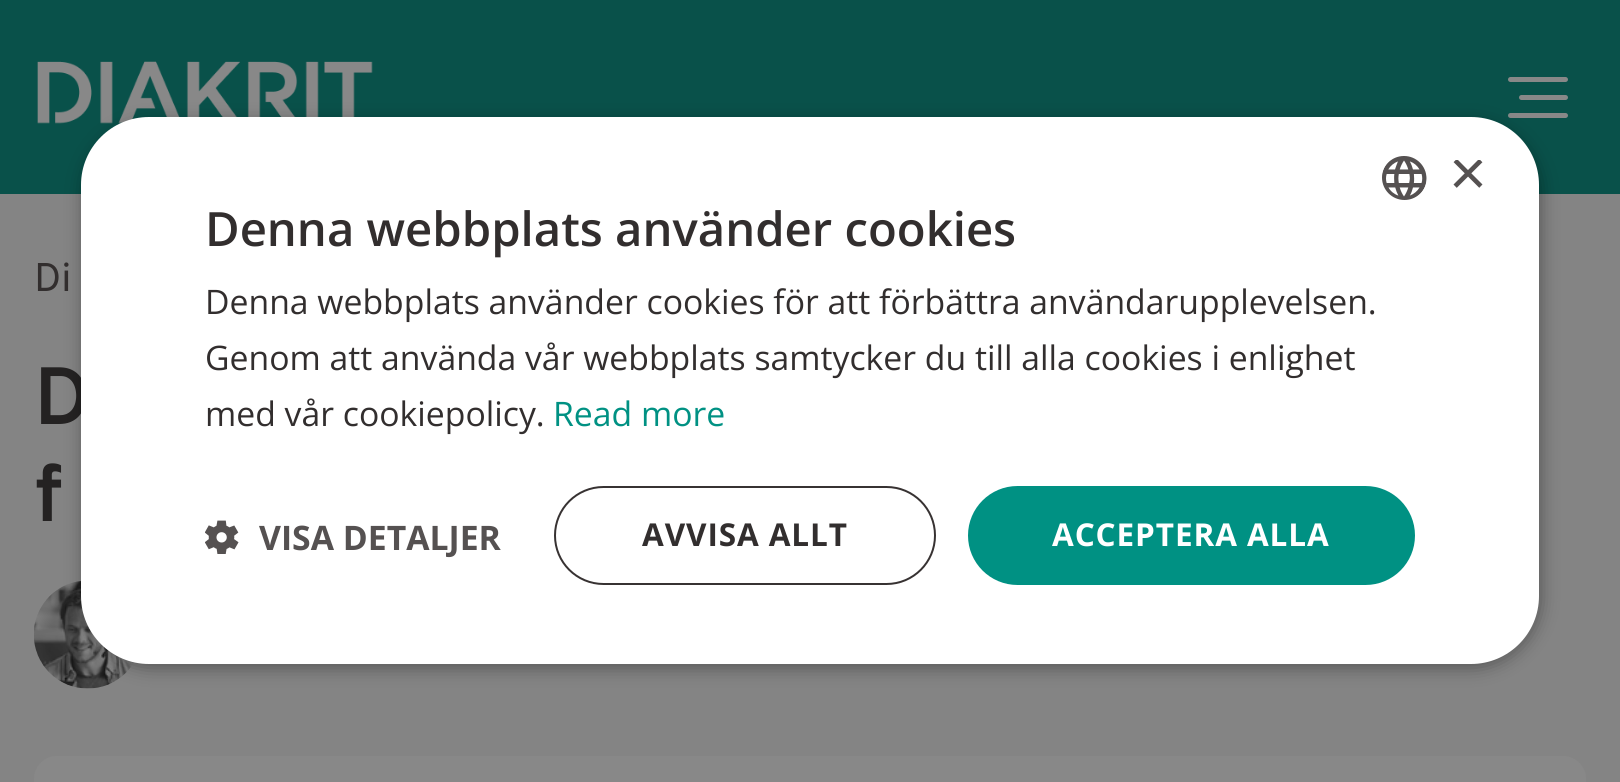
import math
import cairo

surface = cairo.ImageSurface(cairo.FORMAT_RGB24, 1620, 782)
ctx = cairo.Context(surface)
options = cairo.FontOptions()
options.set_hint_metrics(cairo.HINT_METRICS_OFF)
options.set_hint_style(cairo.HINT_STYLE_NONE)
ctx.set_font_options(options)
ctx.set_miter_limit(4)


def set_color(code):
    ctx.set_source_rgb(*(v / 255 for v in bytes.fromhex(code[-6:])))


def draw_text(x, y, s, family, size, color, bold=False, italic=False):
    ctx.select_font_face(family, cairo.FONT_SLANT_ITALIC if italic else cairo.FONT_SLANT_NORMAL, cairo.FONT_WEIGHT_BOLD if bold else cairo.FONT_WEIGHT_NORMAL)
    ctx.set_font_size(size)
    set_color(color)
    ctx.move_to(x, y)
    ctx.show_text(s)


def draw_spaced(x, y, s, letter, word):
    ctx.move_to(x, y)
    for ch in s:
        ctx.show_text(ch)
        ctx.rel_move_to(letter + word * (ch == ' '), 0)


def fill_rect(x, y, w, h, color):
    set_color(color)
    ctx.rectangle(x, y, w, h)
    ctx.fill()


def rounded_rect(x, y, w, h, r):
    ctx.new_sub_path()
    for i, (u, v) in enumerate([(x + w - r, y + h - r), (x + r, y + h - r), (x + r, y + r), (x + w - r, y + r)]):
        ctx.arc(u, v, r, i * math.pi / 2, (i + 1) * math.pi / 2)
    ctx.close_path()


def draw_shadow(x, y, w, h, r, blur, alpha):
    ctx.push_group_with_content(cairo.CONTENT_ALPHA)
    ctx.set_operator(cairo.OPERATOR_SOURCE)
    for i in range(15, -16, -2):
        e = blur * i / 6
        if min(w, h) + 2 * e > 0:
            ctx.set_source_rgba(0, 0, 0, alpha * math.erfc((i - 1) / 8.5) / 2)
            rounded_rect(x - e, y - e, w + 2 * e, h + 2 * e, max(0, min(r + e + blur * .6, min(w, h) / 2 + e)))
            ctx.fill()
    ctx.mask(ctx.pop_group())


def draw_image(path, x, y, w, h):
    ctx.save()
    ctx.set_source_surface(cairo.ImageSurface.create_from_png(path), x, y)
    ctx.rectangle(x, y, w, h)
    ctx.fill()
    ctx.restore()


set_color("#848484")
ctx.paint()
fill_rect(0, 0, 1620, 194, "#09514a")
draw_image("assets/img1.png", 37, 61, 336, 63)
set_color("#888888")
rounded_rect(1519, 95, 49, 5, 2.5)
ctx.fill()
rounded_rect(1508, 77, 60, 5, 2.5)
ctx.fill()
rounded_rect(1508, 113, 60, 5, 2.5)
ctx.fill()
draw_text(34, 291, "Di", "Overpass", 40, "#322e2e")
draw_text(34, 424, "D", "Overpass SemiBold", 81, "#242222")
draw_text(34, 521, "f", "Overpass SemiBold", 81, "#242222")
draw_image("assets/img2.png", 34, 581, 101, 108)
set_color("#888888")
rounded_rect(34, 756, 1552, 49, 23)
ctx.fill()
set_color("#000000")
draw_shadow(83, 122, 1458, 546, 68, 9, 0.35)
set_color("#ffffff")
rounded_rect(81, 117, 1458, 547, 68)
ctx.fill()
draw_image("assets/img3.png", 1382, 156, 45, 44)
ctx.save()
ctx.rectangle(1449, 160, 34, 34)
ctx.clip()
draw_text(1449, 195, "×", "Liberation Sans", 65, "#555151")
ctx.restore()
draw_text(205, 246, "Denna webbplats använder cookies", "Open Sans SemiBold", 47.25, "#322e2e")
draw_text(205, 314, "Denna webbplats använder cookies för att förbättra användarupplevelsen.", "Open Sans", 33.75, "#322e2e")
draw_text(205, 370, "Genom att använda vår webbplats samtycker du till alla cookies i enlighet", "Open Sans", 33.75, "#322e2e")
draw_text(205, 426, "med vår cookiepolicy.", "Open Sans", 33.75, "#322e2e")
draw_text(553, 426, "Read more", "Open Sans", 33.75, "#009183")
draw_image("assets/img4.png", 205, 520, 34, 34)
draw_text(259, 550, "VISA DETALJER", "Open Sans", 33.75, "#555151", bold=True)
rounded_rect(555, 487, 380, 97, 48.5)
set_color("#373232")
ctx.stroke()
ctx.set_font_size(31.5)
set_color("#322e2e")
draw_spaced(642, 546, "AVVISA ALLT", 0.9, 0)
set_color("#009183")
rounded_rect(968, 486, 447, 99, 49.5)
ctx.fill()
set_color("#ffffff")
draw_spaced(1052, 546, "ACCEPTERA ALLA", 0.9, 0)
surface.write_to_png("output.png")
